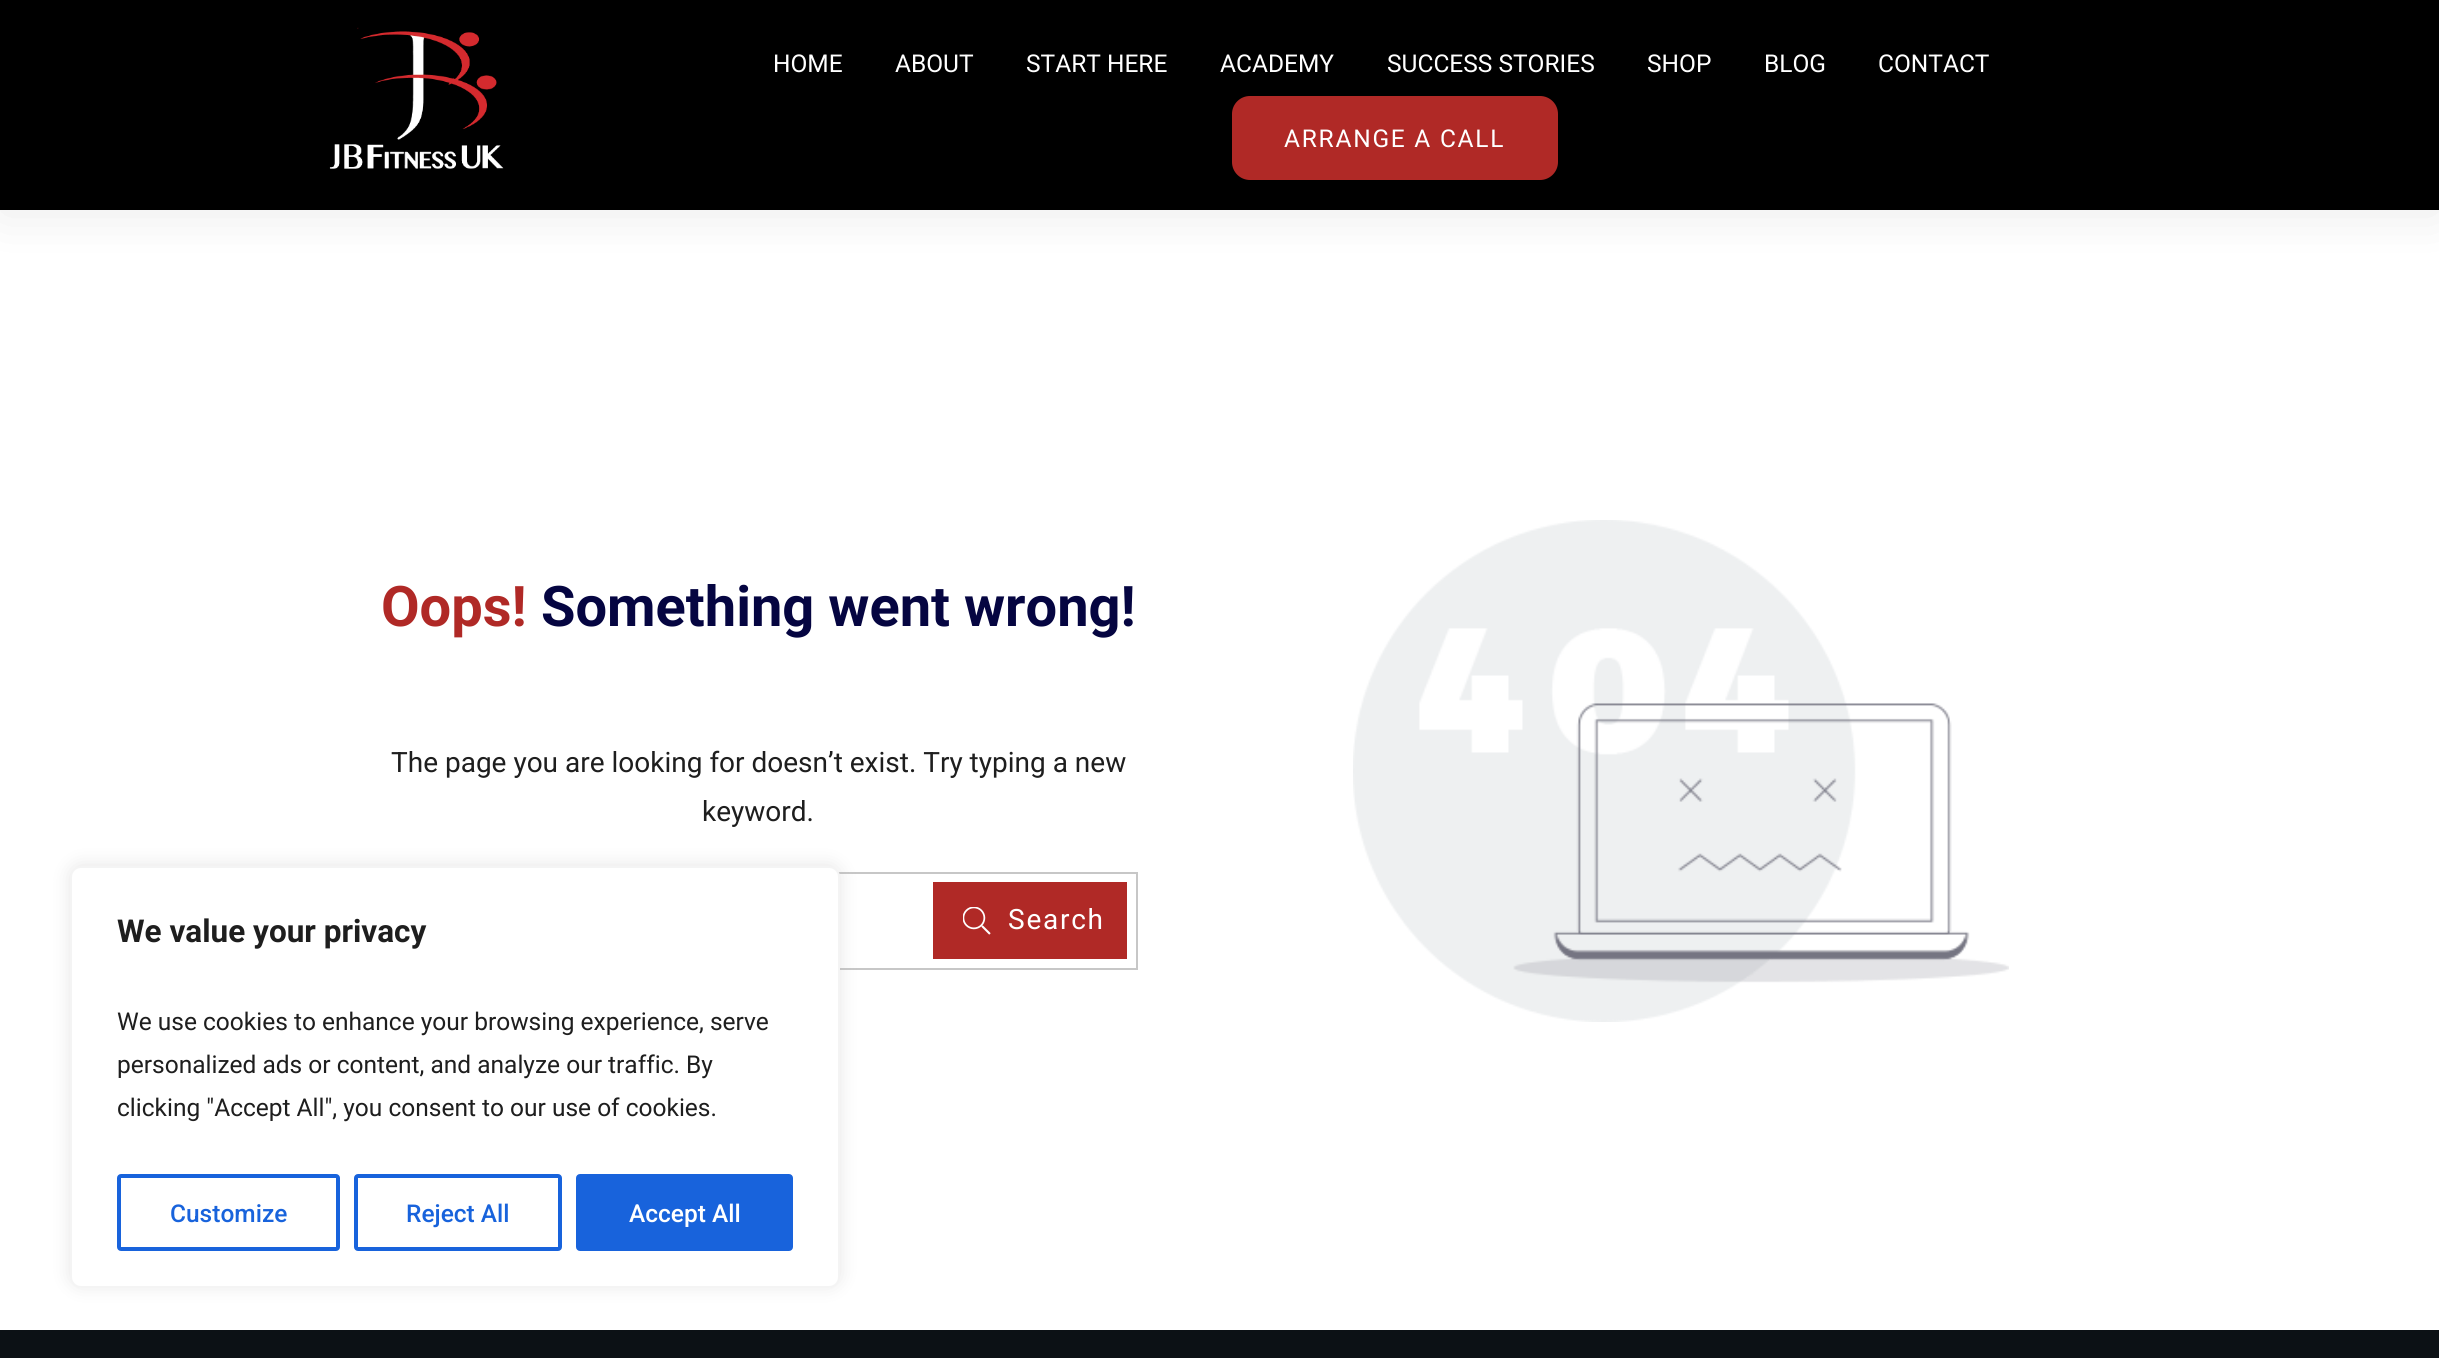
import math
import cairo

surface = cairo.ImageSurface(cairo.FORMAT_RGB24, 2439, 1358)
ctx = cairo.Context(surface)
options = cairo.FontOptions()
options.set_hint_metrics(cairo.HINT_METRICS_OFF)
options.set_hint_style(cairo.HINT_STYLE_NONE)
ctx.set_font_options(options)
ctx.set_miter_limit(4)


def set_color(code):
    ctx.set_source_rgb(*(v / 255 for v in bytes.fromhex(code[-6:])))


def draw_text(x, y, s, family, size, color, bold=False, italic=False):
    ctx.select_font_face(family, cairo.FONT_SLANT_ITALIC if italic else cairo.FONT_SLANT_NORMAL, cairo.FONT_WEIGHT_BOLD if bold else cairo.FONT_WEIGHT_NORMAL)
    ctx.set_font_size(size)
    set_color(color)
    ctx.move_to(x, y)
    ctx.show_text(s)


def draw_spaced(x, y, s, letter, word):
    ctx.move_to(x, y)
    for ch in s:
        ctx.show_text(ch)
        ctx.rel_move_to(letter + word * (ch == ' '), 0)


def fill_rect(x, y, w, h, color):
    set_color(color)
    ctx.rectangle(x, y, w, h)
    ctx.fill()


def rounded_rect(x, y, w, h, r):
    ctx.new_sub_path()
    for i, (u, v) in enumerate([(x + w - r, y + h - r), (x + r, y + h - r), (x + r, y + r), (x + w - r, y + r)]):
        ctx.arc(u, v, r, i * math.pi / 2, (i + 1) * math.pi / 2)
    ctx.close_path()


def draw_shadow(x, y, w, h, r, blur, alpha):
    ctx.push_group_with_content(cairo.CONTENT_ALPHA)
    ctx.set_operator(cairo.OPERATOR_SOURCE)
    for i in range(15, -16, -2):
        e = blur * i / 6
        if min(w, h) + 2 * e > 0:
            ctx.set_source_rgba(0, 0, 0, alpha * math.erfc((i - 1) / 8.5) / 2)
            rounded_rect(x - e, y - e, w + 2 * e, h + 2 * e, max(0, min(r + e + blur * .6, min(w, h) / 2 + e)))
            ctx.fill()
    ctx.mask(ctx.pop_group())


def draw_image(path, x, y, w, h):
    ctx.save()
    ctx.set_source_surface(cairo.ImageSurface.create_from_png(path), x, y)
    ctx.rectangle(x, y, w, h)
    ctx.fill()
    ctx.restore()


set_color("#ffffff")
ctx.paint()
set_color("#000000")
draw_shadow(0, 4, 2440, 210, 0, 26, 0.08)
fill_rect(0, 0, 2439, 210, "#000000")
draw_image("assets/img1.png", 329, 27, 175, 142)
draw_text(773, 72, "HOME", "Roboto", 24.5, "#ffffff")
draw_text(895, 72, "ABOUT", "Roboto", 24.5, "#ffffff")
draw_text(1026, 72, "START HERE", "Roboto", 24.5, "#ffffff")
draw_text(1220, 72, "ACADEMY", "Roboto", 24.5, "#ffffff")
draw_text(1387, 72, "SUCCESS STORIES", "Roboto", 24.5, "#ffffff")
draw_text(1647, 72, "SHOP", "Roboto", 24.5, "#ffffff")
draw_text(1764, 72, "BLOG", "Roboto", 24.5, "#ffffff")
draw_text(1878, 72, "CONTACT", "Roboto", 24.5, "#ffffff")
set_color("#b02926")
rounded_rect(1232, 96, 326, 84, 18)
ctx.fill()
set_color("#ffffff")
draw_spaced(1284, 147, "ARRANGE A CALL", 1.75, 0)
draw_text(381, 626, "Oops!", "Roboto", 56, "#b02926", bold=True)
draw_text(541, 626, "Something went wrong!", "Roboto", 56, "#050541", bold=True)
draw_text(391, 772, "The page you are looking for doesn’t exist. Try typing a new", "Roboto", 28, "#1e1e1e")
draw_text(702, 821, "keyword.", "Roboto", 28, "#1e1e1e")
ctx.rectangle(381, 873, 756, 96)
set_color("#c7c7c7")
ctx.stroke()
fill_rect(933, 882, 194, 77, "#b02926")
draw_image("assets/img2.png", 963, 907, 28, 28)
set_color("#ffffff")
draw_spaced(1008, 929, "Search", 1.75, 0)
draw_image("assets/img3.png", 1353, 520, 656, 502)
fill_rect(0, 1330, 2439, 28, "#0c1115")
set_color("#acabab")
draw_shadow(70, 865, 770, 421, 11, 9, 0.3)
set_color("#ffffff")
rounded_rect(71, 867, 768, 420, 10)
ctx.fill_preserve()
set_color("#f4f4f4")
ctx.stroke()
draw_text(117, 942, "We value your privacy", "Roboto", 31.5, "#1e1e1e", bold=True)
draw_text(117, 1030, "We use cookies to enhance your browsing experience, serve", "Roboto", 24.5, "#1e1e1e")
draw_text(117, 1073, "personalized ads or content, and analyze our traffic. By", "Roboto", 24.5, "#1e1e1e")
draw_text(117, 1116, "clicking \"Accept All\", you consent to our use of cookies.", "Roboto", 24.5, "#1e1e1e")
rounded_rect(119, 1176, 219, 73, 2)
set_color("#1863dc")
ctx.set_line_width(4)
ctx.stroke()
draw_text(170, 1222, "Customize", "Roboto Medium", 24.5, "#1863dc")
rounded_rect(356, 1176, 204, 73, 2)
ctx.stroke()
draw_text(406, 1222, "Reject All", "Roboto Medium", 24.5, "#1863dc")
rounded_rect(578, 1176, 213, 73, 2)
ctx.fill_preserve()
ctx.stroke()
draw_text(629, 1222, "Accept All", "Roboto Medium", 24.5, "#ffffff")
surface.write_to_png("output.png")
